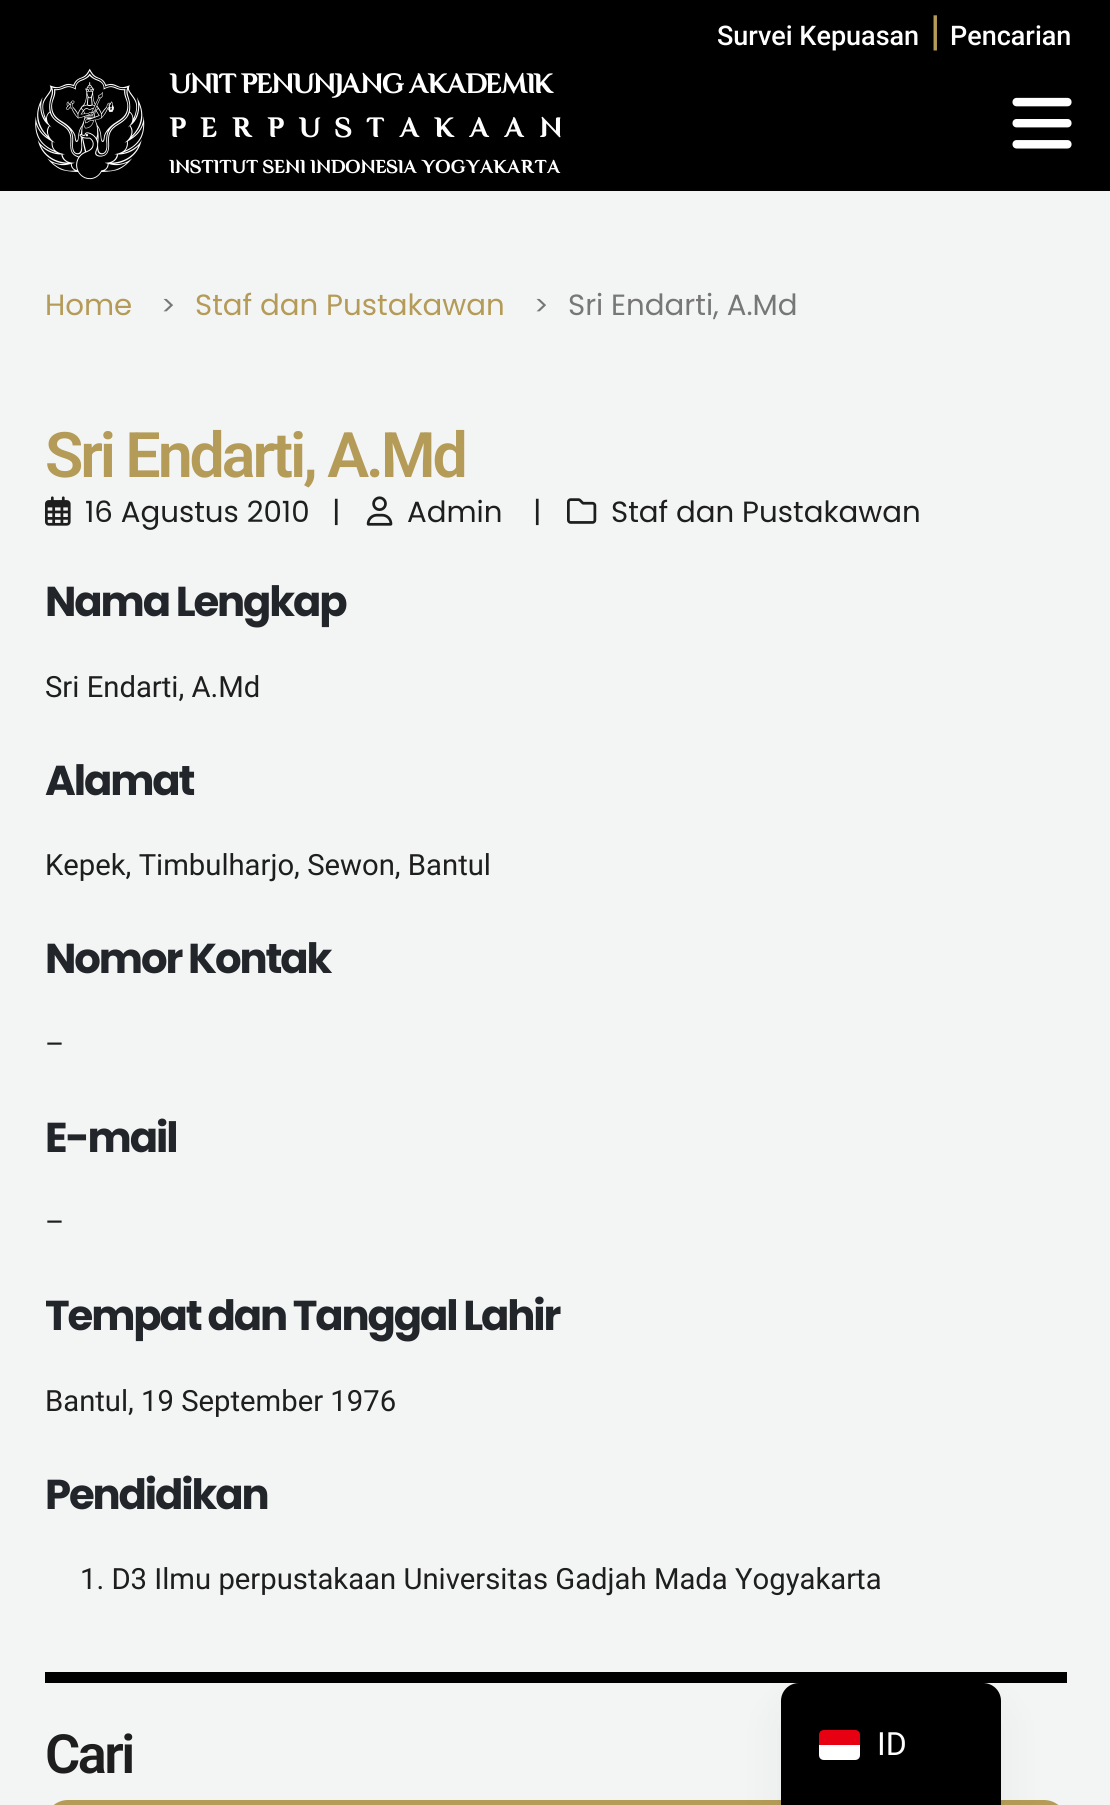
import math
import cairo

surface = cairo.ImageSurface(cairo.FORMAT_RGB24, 1110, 1805)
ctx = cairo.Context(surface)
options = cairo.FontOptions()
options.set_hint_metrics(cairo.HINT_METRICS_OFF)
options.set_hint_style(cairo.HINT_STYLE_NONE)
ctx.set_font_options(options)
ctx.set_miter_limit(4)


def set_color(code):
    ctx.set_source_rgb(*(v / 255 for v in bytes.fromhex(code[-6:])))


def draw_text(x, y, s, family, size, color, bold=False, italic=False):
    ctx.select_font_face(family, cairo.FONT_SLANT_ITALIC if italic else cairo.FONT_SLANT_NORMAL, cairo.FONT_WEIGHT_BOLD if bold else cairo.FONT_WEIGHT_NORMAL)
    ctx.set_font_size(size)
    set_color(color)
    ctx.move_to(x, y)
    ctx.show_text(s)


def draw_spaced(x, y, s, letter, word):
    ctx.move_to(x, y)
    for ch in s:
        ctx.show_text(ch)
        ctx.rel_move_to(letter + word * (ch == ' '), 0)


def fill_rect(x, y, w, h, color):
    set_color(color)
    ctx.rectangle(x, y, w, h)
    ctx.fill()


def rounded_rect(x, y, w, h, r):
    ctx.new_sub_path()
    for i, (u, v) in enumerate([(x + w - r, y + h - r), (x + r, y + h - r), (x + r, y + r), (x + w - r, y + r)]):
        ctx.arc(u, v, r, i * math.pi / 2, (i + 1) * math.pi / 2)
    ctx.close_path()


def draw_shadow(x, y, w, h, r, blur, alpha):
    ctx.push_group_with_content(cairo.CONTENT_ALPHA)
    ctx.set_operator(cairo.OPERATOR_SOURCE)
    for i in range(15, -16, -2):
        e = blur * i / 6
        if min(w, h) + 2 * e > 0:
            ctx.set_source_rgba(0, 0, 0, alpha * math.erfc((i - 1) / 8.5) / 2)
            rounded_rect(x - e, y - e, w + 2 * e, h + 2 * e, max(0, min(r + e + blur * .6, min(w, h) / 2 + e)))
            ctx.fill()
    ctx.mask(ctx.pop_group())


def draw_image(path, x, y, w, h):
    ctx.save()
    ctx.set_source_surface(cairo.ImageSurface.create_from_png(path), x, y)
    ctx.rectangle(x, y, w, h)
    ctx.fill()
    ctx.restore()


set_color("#000000")
ctx.paint()
draw_text(717, 45, "Survei Kepuasan", "Roboto Medium", 27, "#ffffff")
ctx.select_font_face("Roboto SemiBold")
ctx.set_font_size(41.75)
set_color("#b49b57")
draw_spaced(930, 45, "|", -2.1, 0)
draw_text(950, 45, "Pencarian", "Roboto Medium", 27, "#ffffff")
draw_image("assets/img1.png", 35, 68, 110, 112)
ctx.select_font_face("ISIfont", cairo.FONT_SLANT_NORMAL, cairo.FONT_WEIGHT_BOLD)
draw_spaced(169, 93, "UNIT PENUNJANG AKADEMIK", -1.35, 0)
draw_spaced(169, 137, "PERPUSTAKAAN", 14.6, 0)
draw_text(169, 173, "INSTITUT SENI INDONESIA YOGYAKARTA", "ISIfont", 18, "#ffffff", bold=True)
draw_image("assets/img2.png", 1012, 97, 60, 52)
fill_rect(0, 191, 1110, 1614, "#f3f4f4")
draw_text(45, 315, "Home", "Poppins", 29.25, "#b49b57")
draw_text(161, 315, ">", "Poppins", 27, "#777777")
draw_text(195, 315, "Staf dan Pustakawan", "Poppins", 29.25, "#b49b57")
draw_text(534, 315, ">", "Poppins", 27, "#777777")
draw_text(568, 315, "Sri Endarti, A.Md", "Poppins", 29.25, "#777777")
ctx.select_font_face("Roboto SemiBold")
ctx.set_font_size(62.75)
set_color("#b49b57")
draw_spaced(45, 477, "Sri Endarti, A.Md", -3.1, 0)
draw_image("assets/img3.png", 45, 496, 26, 30)
draw_text(85, 522, "16 Agustus 2010", "Poppins", 29.25, "#1e1e1e")
draw_text(332, 522, "|", "Poppins", 29.25, "#1e1e1e")
draw_image("assets/img4.png", 366, 496, 27, 30)
draw_text(407, 522, "Admin", "Poppins", 29.25, "#1e1e1e")
draw_text(533, 522, "|", "Poppins", 29.25, "#1e1e1e")
draw_image("assets/img5.png", 567, 498, 30, 26)
draw_text(611, 522, "Staf dan Pustakawan", "Poppins", 29.25, "#1e1e1e")
ctx.select_font_face("Poppins", cairo.FONT_SLANT_NORMAL, cairo.FONT_WEIGHT_BOLD)
ctx.set_font_size(41.75)
set_color("#222529")
draw_spaced(45, 616, "Nama Lengkap", -2.1, 0)
draw_text(45, 697, "Sri Endarti, A.Md", "Roboto", 29.25, "#1e1e1e")
ctx.select_font_face("Poppins", cairo.FONT_SLANT_NORMAL, cairo.FONT_WEIGHT_BOLD)
ctx.set_font_size(41.75)
set_color("#222529")
draw_spaced(45, 795, "Alamat", -2.1, 0)
draw_text(45, 875, "Kepek, Timbulharjo, Sewon, Bantul", "Roboto", 29.25, "#1e1e1e")
ctx.select_font_face("Poppins", cairo.FONT_SLANT_NORMAL, cairo.FONT_WEIGHT_BOLD)
ctx.set_font_size(41.75)
set_color("#222529")
draw_spaced(45, 973, "Nomor Kontak", -2.1, 0)
draw_text(45, 1054, "–", "Roboto", 29.25, "#1e1e1e")
ctx.select_font_face("Poppins", cairo.FONT_SLANT_NORMAL, cairo.FONT_WEIGHT_BOLD)
ctx.set_font_size(41.75)
set_color("#222529")
draw_spaced(45, 1152, "E-mail", -2.1, 0)
draw_text(45, 1232, "–", "Roboto", 29.25, "#1e1e1e")
ctx.select_font_face("Poppins", cairo.FONT_SLANT_NORMAL, cairo.FONT_WEIGHT_BOLD)
ctx.set_font_size(41.75)
set_color("#222529")
draw_spaced(45, 1330, "Tempat dan Tanggal Lahir", -2.1, 0)
draw_text(45, 1411, "Bantul, 19 September 1976", "Roboto", 29.25, "#1e1e1e")
ctx.select_font_face("Poppins", cairo.FONT_SLANT_NORMAL, cairo.FONT_WEIGHT_BOLD)
ctx.set_font_size(41.75)
set_color("#222529")
draw_spaced(45, 1509, "Pendidikan", -2.1, 0)
draw_text(80, 1589, "1. D3 Ilmu perpustakaan Universitas Gadjah Mada Yogyakarta", "Roboto", 29.25, "#1e1e1e")
fill_rect(45, 1672, 1022, 11, "#000000")
ctx.select_font_face("Roboto SemiBold")
ctx.set_font_size(54)
set_color("#1e1e1e")
draw_spaced(45, 1773, "Cari", -2.5, 0)
rounded_rect(48.5, 1803.5, 1015, 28, 19.5)
set_color("#b49b57")
ctx.set_line_width(7)
ctx.stroke()
set_color("#000000")
draw_shadow(781, 1706, 220, 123, 18, 22.5, 0.05)
set_color("#000000")
ctx.new_path()
ctx.move_to(799, 1683)
ctx.line_to(983, 1683)
ctx.curve_to(993, 1683, 1001, 1691, 1001, 1701)
ctx.line_to(1001, 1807)
ctx.line_to(781, 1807)
ctx.line_to(781, 1701)
ctx.curve_to(781, 1691, 789, 1683, 799, 1683)
ctx.close_path()
ctx.fill()
set_color("#e70011")
ctx.new_path()
ctx.move_to(824, 1730)
ctx.line_to(855, 1730)
ctx.curve_to(858, 1730, 860, 1732, 860, 1735)
ctx.line_to(860, 1745)
ctx.line_to(819, 1745)
ctx.line_to(819, 1735)
ctx.curve_to(819, 1732, 821, 1730, 824, 1730)
ctx.close_path()
ctx.fill()
set_color("#ffffff")
ctx.new_path()
ctx.move_to(819, 1745)
ctx.line_to(860, 1745)
ctx.line_to(860, 1755)
ctx.curve_to(860, 1758, 858, 1760, 855, 1760)
ctx.line_to(824, 1760)
ctx.curve_to(821, 1760, 819, 1758, 819, 1755)
ctx.close_path()
ctx.fill()
draw_text(877, 1755, "ID", "Roboto", 32, "#ffffff")
surface.write_to_png("output.png")
